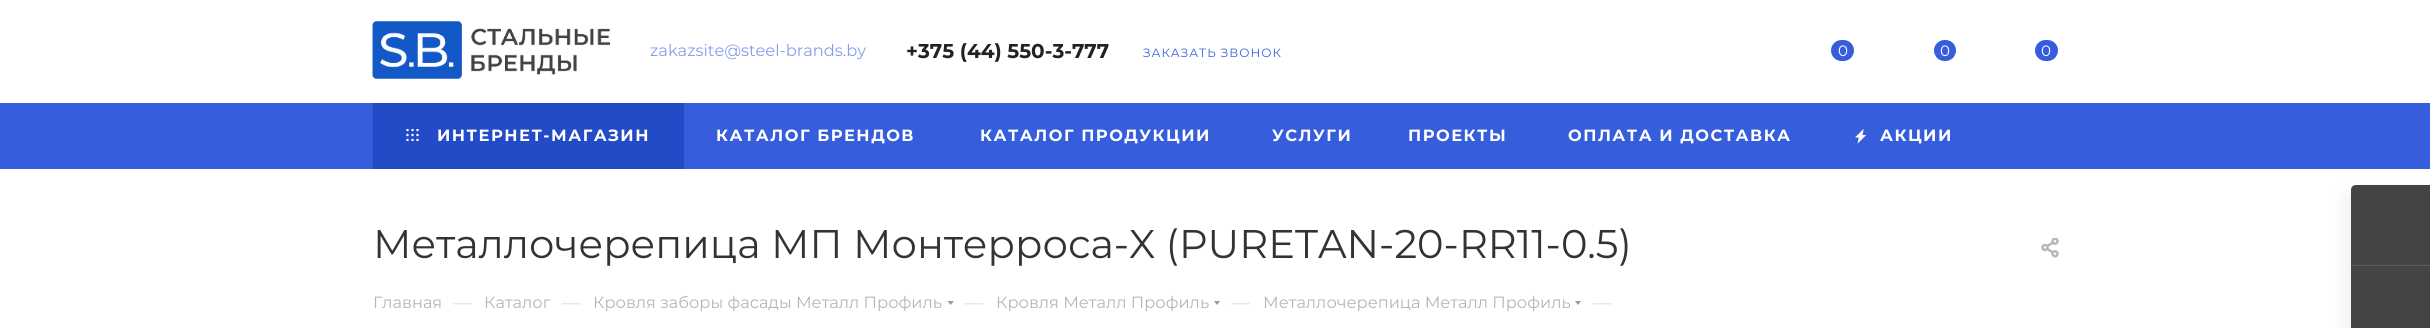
import math
import cairo

surface = cairo.ImageSurface(cairo.FORMAT_RGB24, 2430, 328)
ctx = cairo.Context(surface)
options = cairo.FontOptions()
options.set_hint_metrics(cairo.HINT_METRICS_OFF)
options.set_hint_style(cairo.HINT_STYLE_NONE)
ctx.set_font_options(options)
ctx.set_miter_limit(4)


def set_color(code):
    ctx.set_source_rgb(*(v / 255 for v in bytes.fromhex(code[-6:])))


def draw_text(x, y, s, family, size, color, bold=False, italic=False):
    ctx.select_font_face(family, cairo.FONT_SLANT_ITALIC if italic else cairo.FONT_SLANT_NORMAL, cairo.FONT_WEIGHT_BOLD if bold else cairo.FONT_WEIGHT_NORMAL)
    ctx.set_font_size(size)
    set_color(color)
    ctx.move_to(x, y)
    ctx.show_text(s)


def draw_spaced(x, y, s, letter, word):
    ctx.move_to(x, y)
    for ch in s:
        ctx.show_text(ch)
        ctx.rel_move_to(letter + word * (ch == ' '), 0)


def fill_rect(x, y, w, h, color):
    set_color(color)
    ctx.rectangle(x, y, w, h)
    ctx.fill()


def rounded_rect(x, y, w, h, r):
    ctx.new_sub_path()
    for i, (u, v) in enumerate([(x + w - r, y + h - r), (x + r, y + h - r), (x + r, y + r), (x + w - r, y + r)]):
        ctx.arc(u, v, r, i * math.pi / 2, (i + 1) * math.pi / 2)
    ctx.close_path()


def draw_shadow(x, y, w, h, r, blur, alpha):
    ctx.push_group_with_content(cairo.CONTENT_ALPHA)
    ctx.set_operator(cairo.OPERATOR_SOURCE)
    for i in range(15, -16, -2):
        e = blur * i / 6
        if min(w, h) + 2 * e > 0:
            ctx.set_source_rgba(0, 0, 0, alpha * math.erfc((i - 1) / 8.5) / 2)
            rounded_rect(x - e, y - e, w + 2 * e, h + 2 * e, max(0, min(r + e + blur * .6, min(w, h) / 2 + e)))
            ctx.fill()
    ctx.mask(ctx.pop_group())


def draw_image(path, x, y, w, h):
    ctx.save()
    ctx.set_source_surface(cairo.ImageSurface.create_from_png(path), x, y)
    ctx.rectangle(x, y, w, h)
    ctx.fill()
    ctx.restore()


set_color("#ffffff")
ctx.paint()
draw_image("assets/img1.png", 372, 21, 238, 58)
draw_text(650, 56, "zakazsite@steel-brands.by", "Montserrat", 16.25, "#869eea")
draw_text(906, 58, "+375 (44) 550-3-777", "Montserrat", 20, "#222222", bold=True)
ctx.select_font_face("Montserrat")
ctx.set_font_size(12)
set_color("#365edc")
draw_spaced(1143, 57, "ЗАКАЗАТЬ ЗВОНОК", 1, 0)
rounded_rect(1831, 40, 23, 21, 10.5)
ctx.fill()
draw_text(1838, 56, "0", "Montserrat", 15, "#ffffff")
set_color("#365edc")
rounded_rect(1934, 40, 22, 21, 10.5)
ctx.fill()
draw_text(1940, 56, "0", "Montserrat", 15, "#ffffff")
set_color("#365edc")
rounded_rect(2035, 40, 23, 21, 10.5)
ctx.fill()
draw_text(2041, 56, "0", "Montserrat", 15, "#ffffff")
fill_rect(0, 103, 2430, 66, "#365edc")
fill_rect(373, 103, 311, 66, "#234ac7")
draw_image("assets/img2.png", 406, 129, 13, 12)
ctx.select_font_face("Montserrat", cairo.FONT_SLANT_NORMAL, cairo.FONT_WEIGHT_BOLD)
ctx.set_font_size(16.25)
set_color("#ffffff")
draw_spaced(437, 141, "ИНТЕРНЕТ-МАГАЗИН", 1.5, 0)
draw_spaced(716, 141, "КАТАЛОГ БРЕНДОВ", 1.5, 0)
draw_spaced(980, 141, "КАТАЛОГ ПРОДУКЦИИ", 1.5, 0)
draw_spaced(1272, 141, "УСЛУГИ", 1.5, 0)
draw_spaced(1408, 141, "ПРОЕКТЫ", 1.5, 0)
draw_spaced(1568, 141, "ОПЛАТА И ДОСТАВКА", 1.5, 0)
draw_image("assets/img3.png", 1855, 129, 11, 15)
draw_spaced(1880, 141, "АКЦИИ", 1.5, 0)
draw_text(373, 258, "Металлочерепица МП Монтерроса-X (PURETAN-20-RR11-0.5)", "Montserrat", 40, "#333333")
draw_image("assets/img4.png", 2041, 238, 18, 20)
draw_text(373, 308, "Главная", "Montserrat", 16.25, "#b6b5b5")
draw_text(453, 309, "—", "Montserrat", 19, "#dddddd")
draw_text(484, 308, "Каталог", "Montserrat", 16.25, "#b6b5b5")
draw_text(562, 309, "—", "Montserrat", 19, "#dddddd")
draw_text(593, 308, "Кровля заборы фасады Металл Профиль", "Montserrat", 16.25, "#b6b5b5")
set_color("#999999")
ctx.set_fill_rule(cairo.FILL_RULE_EVEN_ODD)
ctx.new_path()
ctx.move_to(947.5, 301)
ctx.line_to(954, 301)
ctx.line_to(950.5, 305)
ctx.close_path()
ctx.fill()
draw_text(964, 309, "—", "Montserrat", 19, "#dddddd")
draw_text(996, 308, "Кровля Металл Профиль", "Montserrat", 16.25, "#b6b5b5")
set_color("#999999")
ctx.new_path()
ctx.move_to(1214, 301)
ctx.line_to(1220, 301)
ctx.line_to(1217, 305)
ctx.close_path()
ctx.fill()
draw_text(1231, 309, "—", "Montserrat", 19, "#dddddd")
draw_text(1263, 308, "Металлочерепица Металл Профиль", "Montserrat", 16.25, "#b6b5b5")
set_color("#999999")
ctx.new_path()
ctx.move_to(1575, 301)
ctx.line_to(1581, 301)
ctx.line_to(1578, 305)
ctx.close_path()
ctx.fill()
draw_text(1593, 309, "—", "Montserrat", 19, "#dddddd")
set_color("#000000")
draw_shadow(2351, 198, 79, 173, 5, 12.5, 0.1)
set_color("#444444")
ctx.new_path()
ctx.move_to(2356, 185)
ctx.line_to(2430, 185)
ctx.line_to(2430, 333)
ctx.line_to(2356, 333)
ctx.curve_to(2353, 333, 2351, 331, 2351, 328)
ctx.line_to(2351, 190)
ctx.curve_to(2351, 187, 2353, 185, 2356, 185)
ctx.close_path()
ctx.fill()
fill_rect(2351, 265, 79, 1, "#5d5d5d")
surface.write_to_png("output.png")
